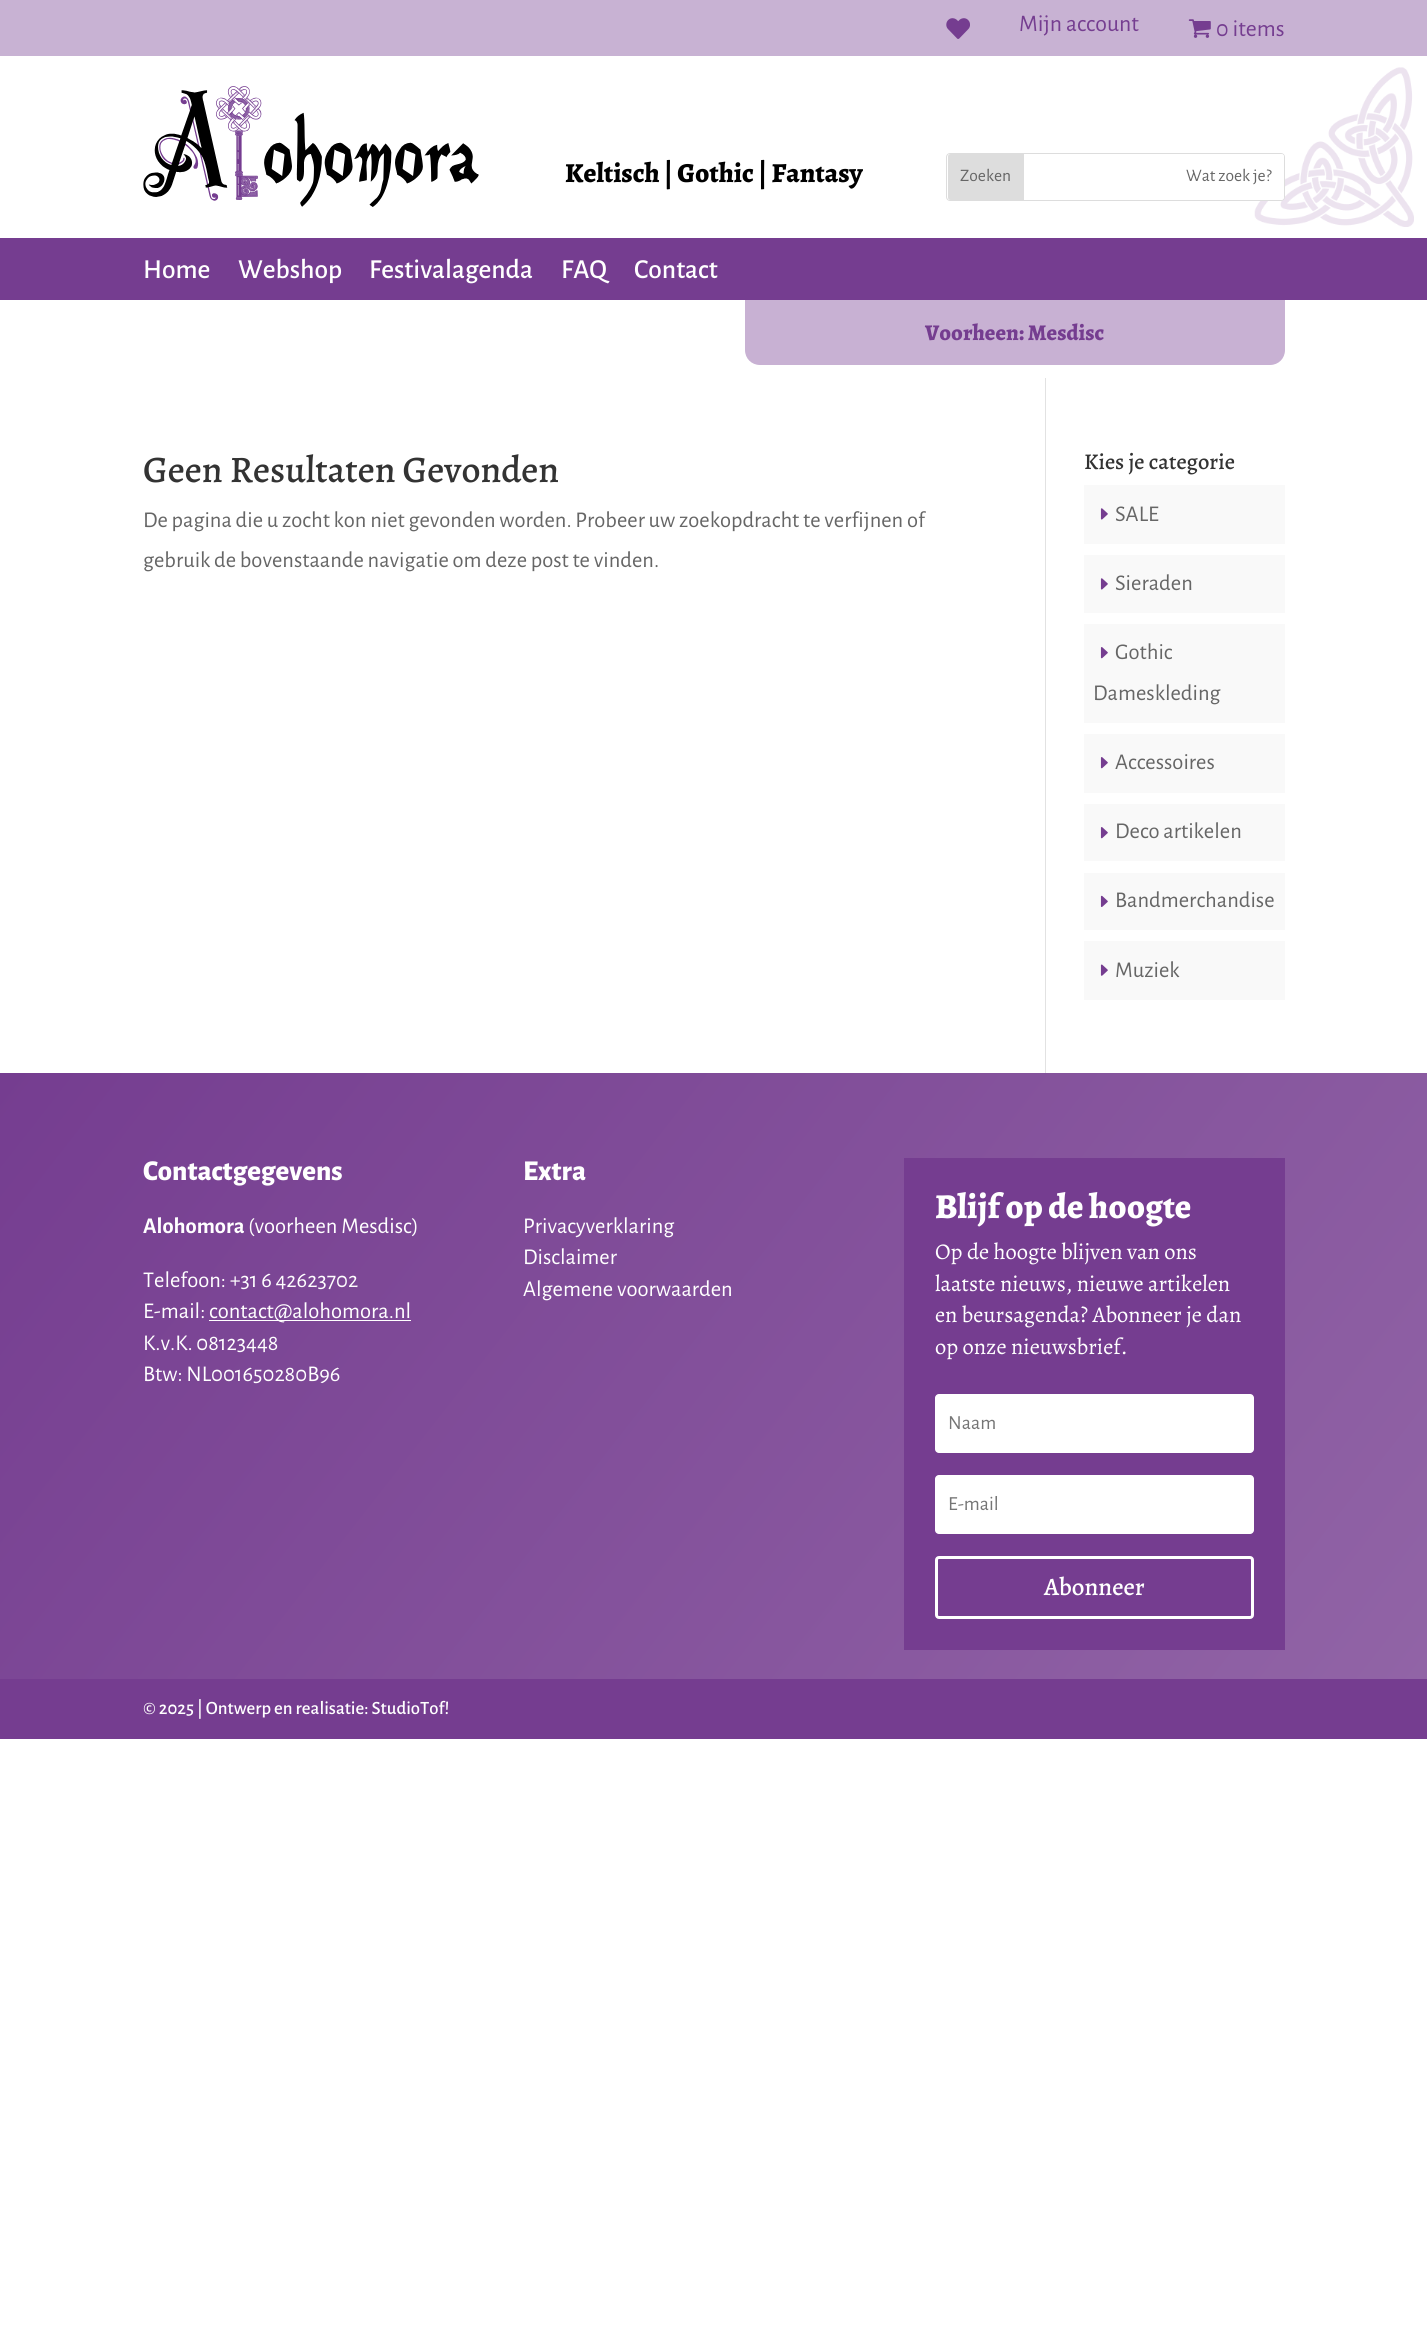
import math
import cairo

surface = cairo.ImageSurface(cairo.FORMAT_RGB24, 1427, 2352)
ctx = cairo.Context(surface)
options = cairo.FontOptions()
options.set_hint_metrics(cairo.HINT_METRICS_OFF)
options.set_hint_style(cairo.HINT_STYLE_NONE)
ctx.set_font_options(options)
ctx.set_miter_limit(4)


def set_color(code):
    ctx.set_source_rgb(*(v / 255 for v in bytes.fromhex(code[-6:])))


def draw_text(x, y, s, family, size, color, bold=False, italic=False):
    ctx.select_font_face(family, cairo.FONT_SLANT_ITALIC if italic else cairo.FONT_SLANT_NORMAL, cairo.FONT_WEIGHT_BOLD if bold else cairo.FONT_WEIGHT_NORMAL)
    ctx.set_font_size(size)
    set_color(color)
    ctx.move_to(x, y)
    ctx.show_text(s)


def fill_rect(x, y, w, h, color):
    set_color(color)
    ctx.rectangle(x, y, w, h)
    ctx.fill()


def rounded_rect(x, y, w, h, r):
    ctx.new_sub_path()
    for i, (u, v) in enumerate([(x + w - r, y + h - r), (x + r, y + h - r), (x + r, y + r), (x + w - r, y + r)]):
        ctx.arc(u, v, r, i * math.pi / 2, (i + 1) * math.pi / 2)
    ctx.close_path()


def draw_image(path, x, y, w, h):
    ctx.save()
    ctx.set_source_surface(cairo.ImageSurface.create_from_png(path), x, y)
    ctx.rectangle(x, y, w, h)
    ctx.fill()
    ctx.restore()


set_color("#ffffff")
ctx.paint()
fill_rect(0, 0, 1427, 56, "#c8b2d3")
draw_image("assets/img1.png", 946, 18, 24, 21)
draw_text(1019, 31, "Mijn account", "Alegreya Sans", 23.75, "#753d90")
draw_image("assets/img2.png", 1188, 19, 23, 19)
draw_text(1216, 36, "0 items", "Alegreya Sans", 23.75, "#753d90")
draw_image("assets/img3.png", 1254, 67, 160, 160)
draw_image("assets/img4.png", 143, 86, 336, 121)
draw_text(565, 182, "Keltisch | Gothic | Fantasy", "Alegreya ExtraBold", 27.5, "#000000")
rounded_rect(946.5, 153.5, 338, 47, 3.5)
set_color("#dddddd")
ctx.set_line_width(1)
ctx.stroke()
set_color("#ffffff")
rounded_rect(948, 154, 336, 46, 2.5)
ctx.fill()
set_color("#dddddd")
ctx.new_path()
ctx.move_to(950.5, 154)
ctx.line_to(1024, 154)
ctx.line_to(1024, 200)
ctx.line_to(950.5, 200)
ctx.curve_to(949, 200, 948, 199, 948, 197.5)
ctx.line_to(948, 156.5)
ctx.curve_to(948, 155, 949, 154, 950.5, 154)
ctx.close_path()
ctx.fill()
draw_text(960, 181, "Zoeken", "Alegreya Sans", 17.5, "#666666")
draw_text(1186, 181, "Wat zoek je?", "Alegreya Sans", 17.5, "#666666")
fill_rect(0, 238, 1427, 62, "#753d90")
draw_text(143, 278, "Home", "Alegreya Sans Medium", 27.5, "#ffffff")
draw_text(238, 278, "Webshop", "Alegreya Sans Medium", 27.5, "#ffffff")
draw_text(369, 278, "Festivalagenda", "Alegreya Sans Medium", 27.5, "#ffffff")
draw_text(561, 278, "FAQ", "Alegreya Sans Medium", 27.5, "#ffffff")
draw_text(634, 278, "Contact", "Alegreya Sans Medium", 27.5, "#ffffff")
set_color("#c8b1d3")
ctx.new_path()
ctx.move_to(745, 300)
ctx.line_to(1285, 300)
ctx.line_to(1285, 350)
ctx.curve_to(1285, 358.5, 1278.5, 365, 1270, 365)
ctx.line_to(760, 365)
ctx.curve_to(751.5, 365, 745, 358.5, 745, 350)
ctx.close_path()
ctx.fill()
draw_text(925, 340, "Voorheen: Mesdisc", "Alegreya ExtraBold", 22.5, "#753d90")
fill_rect(1045, 378, 1, 695, "#e2e2e2")
draw_text(143, 482, "Geen Resultaten Gevonden", "Alegreya Medium", 37.5, "#333333")
draw_text(143, 527, "De pagina die u zocht kon niet gevonden worden. Probeer uw zoekopdracht te verfijnen of", "Alegreya Sans", 22.5, "#666666")
draw_text(143, 567, "gebruik de bovenstaande navigatie om deze post te vinden.", "Alegreya Sans", 22.5, "#666666")
draw_text(1084, 469, "Kies je categorie", "Alegreya Medium", 22.5, "#333333")
fill_rect(1084, 485, 201, 59, "#f9f9f9")
draw_image("assets/img5.png", 1100, 508, 8, 12)
draw_text(1115, 521, "SALE", "Alegreya Sans", 22.5, "#666666")
fill_rect(1084, 555, 201, 58, "#f9f9f9")
draw_image("assets/img5.png", 1100, 578, 8, 12)
draw_text(1115, 590, "Sieraden", "Alegreya Sans", 22.5, "#666666")
fill_rect(1084, 624, 201, 99, "#f9f9f9")
draw_image("assets/img6.png", 1100, 647, 8, 12)
draw_text(1115, 659, "Gothic", "Alegreya Sans", 22.5, "#666666")
draw_text(1093, 700, "Dameskleding", "Alegreya Sans", 22.5, "#666666")
fill_rect(1084, 734, 201, 59, "#f9f9f9")
draw_image("assets/img6.png", 1100, 757, 8, 12)
draw_text(1115, 769, "Accessoires", "Alegreya Sans", 22.5, "#666666")
fill_rect(1084, 804, 201, 57, "#f9f9f9")
draw_image("assets/img6.png", 1100, 827, 8, 12)
draw_text(1115, 838, "Deco artikelen", "Alegreya Sans", 22.5, "#666666")
fill_rect(1084, 873, 201, 57, "#f9f9f9")
draw_image("assets/img7.png", 1100, 895, 8, 12)
draw_text(1115, 907, "Bandmerchandise", "Alegreya Sans", 22.5, "#666666")
fill_rect(1084, 941, 201, 59, "#f9f9f9")
draw_image("assets/img8.png", 1100, 964, 8, 12)
draw_text(1115, 977, "Muziek", "Alegreya Sans", 22.5, "#666666")
gradient = cairo.LinearGradient(123, 914, 1304, 1837)
gradient.add_color_stop_rgba(0, 0.459, 0.239, 0.565, 1)
gradient.add_color_stop_rgba(1, 0.569, 0.392, 0.651, 1)
ctx.set_source(gradient)
ctx.rectangle(0, 1073, 1427, 606)
ctx.fill()
draw_text(143, 1180, "Contactgegevens", "Alegreya Sans ExtraBold", 28.75, "#ffffff")
draw_text(143, 1233, "Alohomora", "Alegreya Sans", 22.5, "#ffffff", bold=True)
draw_text(248, 1233, "(voorheen Mesdisc)", "Alegreya Sans", 22.5, "#ffffff")
draw_text(143, 1287, "Telefoon: +31 6 42623702", "Alegreya Sans", 22.5, "#ffffff")
draw_text(143, 1318, "E-mail:", "Alegreya Sans", 22.5, "#ffffff")
fill_rect(209, 1320, 202, 1, "#ffffff")
draw_text(209, 1318, "contact@alohomora.nl", "Alegreya Sans", 22.5, "#ffffff")
draw_text(143, 1350, "K.v.K. 08123448", "Alegreya Sans", 22.5, "#ffffff")
draw_text(143, 1381, "Btw: NL001650280B96", "Alegreya Sans", 22.5, "#ffffff")
draw_text(523, 1180, "Extra", "Alegreya Sans ExtraBold", 28.75, "#ffffff")
draw_text(523, 1233, "Privacyverklaring", "Alegreya Sans", 22.5, "#ffffff")
draw_text(523, 1264, "Disclaimer", "Alegreya Sans", 22.5, "#ffffff")
draw_text(523, 1296, "Algemene voorwaarden", "Alegreya Sans", 22.5, "#ffffff")
fill_rect(904, 1158, 381, 492, "#753d90")
draw_text(935, 1218, "Blijf op de hoogte", "Alegreya ExtraBold", 35, "#ffffff")
draw_text(935, 1259, "Op de hoogte blijven van ons", "Alegreya", 22.5, "#ffffff")
draw_text(935, 1291, "laatste nieuws, nieuwe artikelen", "Alegreya", 22.5, "#ffffff")
draw_text(935, 1322, "en beursagenda? Abonneer je dan", "Alegreya", 22.5, "#ffffff")
draw_text(935, 1354, "op onze nieuwsbrief.", "Alegreya", 22.5, "#ffffff")
rounded_rect(935, 1394, 319, 59, 4)
ctx.fill()
draw_text(948, 1429, "Naam", "Alegreya Sans", 20, "#757575")
set_color("#ffffff")
rounded_rect(935, 1475, 319, 59, 4)
ctx.fill()
draw_text(948, 1510, "E-mail", "Alegreya Sans", 20, "#757575")
rounded_rect(936.5, 1557.5, 316, 60, 2.5)
set_color("#ffffff")
ctx.set_line_width(3)
ctx.stroke()
draw_text(1044, 1595, "Abonneer", "Alegreya Medium", 25, "#ffffff")
fill_rect(0, 1679, 1427, 60, "#753d90")
draw_text(143, 1714, "© 2025 | Ontwerp en realisatie: StudioTof!", "Alegreya Sans Medium", 18.75, "#ffffff")
surface.write_to_png("output.png")
